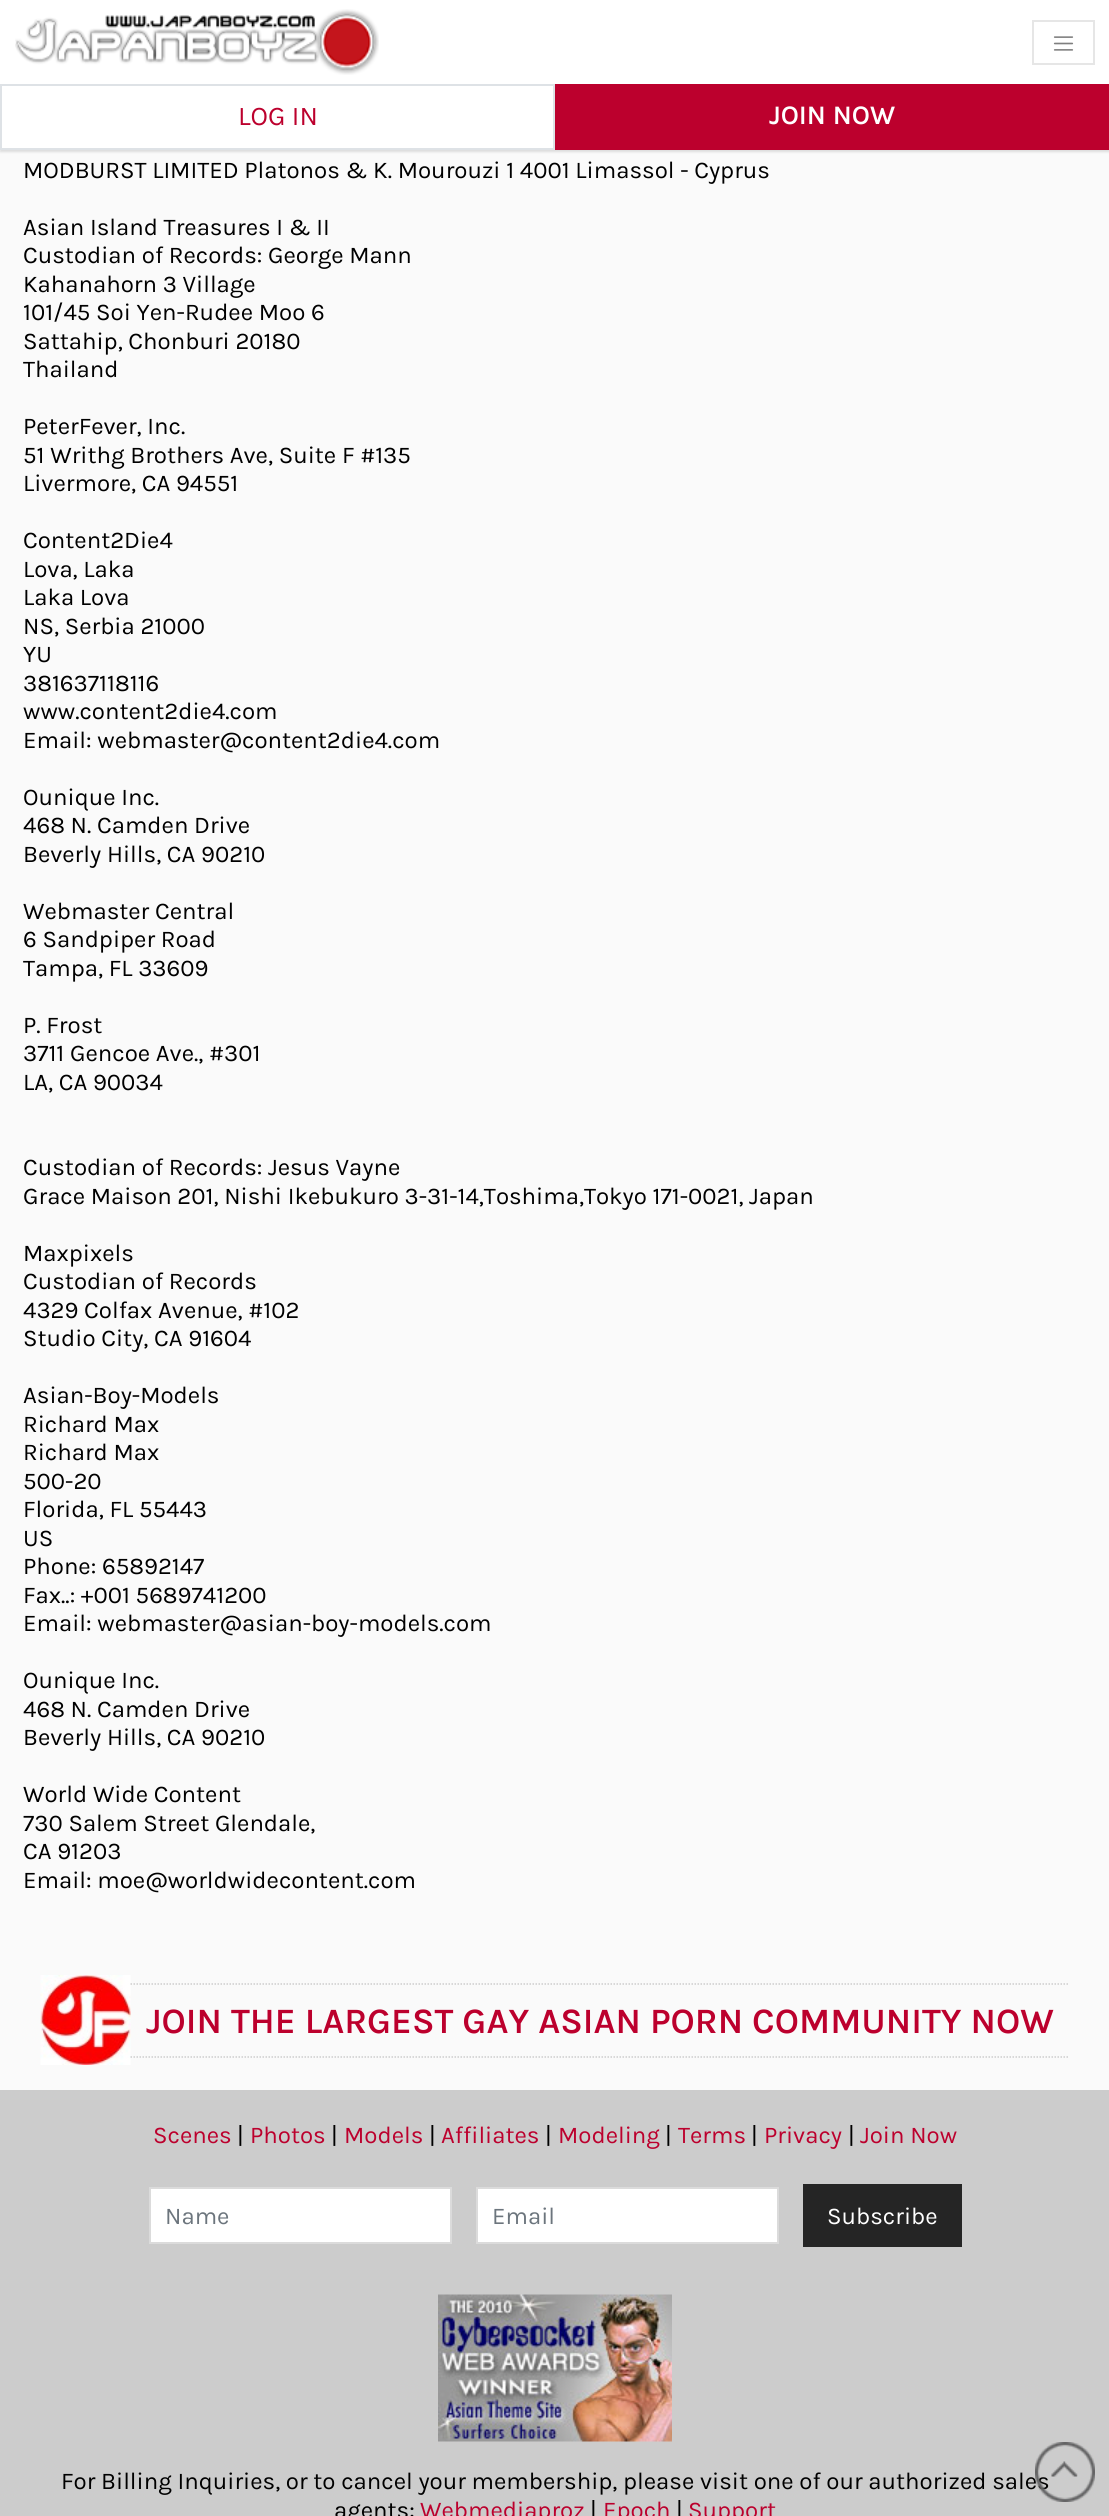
import math
import cairo

surface = cairo.ImageSurface(cairo.FORMAT_RGB24, 1109, 2516)
ctx = cairo.Context(surface)
options = cairo.FontOptions()
options.set_hint_metrics(cairo.HINT_METRICS_OFF)
options.set_hint_style(cairo.HINT_STYLE_NONE)
ctx.set_font_options(options)
ctx.set_miter_limit(4)


def set_color(code):
    ctx.set_source_rgb(*(v / 255 for v in bytes.fromhex(code[-6:])))


def draw_text(x, y, s, family, size, color, bold=False, italic=False):
    ctx.select_font_face(family, cairo.FONT_SLANT_ITALIC if italic else cairo.FONT_SLANT_NORMAL, cairo.FONT_WEIGHT_BOLD if bold else cairo.FONT_WEIGHT_NORMAL)
    ctx.set_font_size(size)
    set_color(color)
    ctx.move_to(x, y)
    ctx.show_text(s)


def fill_rect(x, y, w, h, color):
    set_color(color)
    ctx.rectangle(x, y, w, h)
    ctx.fill()


def rounded_rect(x, y, w, h, r):
    ctx.new_sub_path()
    for i, (u, v) in enumerate([(x + w - r, y + h - r), (x + r, y + h - r), (x + r, y + r), (x + w - r, y + r)]):
        ctx.arc(u, v, r, i * math.pi / 2, (i + 1) * math.pi / 2)
    ctx.close_path()


def draw_shadow(x, y, w, h, r, blur, alpha):
    ctx.push_group_with_content(cairo.CONTENT_ALPHA)
    ctx.set_operator(cairo.OPERATOR_SOURCE)
    for i in range(15, -16, -2):
        e = blur * i / 6
        if min(w, h) + 2 * e > 0:
            ctx.set_source_rgba(0, 0, 0, alpha * math.erfc((i - 1) / 8.5) / 2)
            rounded_rect(x - e, y - e, w + 2 * e, h + 2 * e, max(0, min(r + e + blur * .6, min(w, h) / 2 + e)))
            ctx.fill()
    ctx.mask(ctx.pop_group())


def draw_image(path, x, y, w, h):
    ctx.save()
    ctx.set_source_surface(cairo.ImageSurface.create_from_png(path), x, y)
    ctx.rectangle(x, y, w, h)
    ctx.fill()
    ctx.restore()


set_color("#fafafa")
ctx.paint()
set_color("#dddddd")
draw_shadow(0, 2, 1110, 150, 0, 1, 1)
fill_rect(0, 0, 1109, 148, "#ffffff")
draw_image("assets/img1.png", 15, 9, 364, 66)
ctx.rectangle(1033, 21, 61, 43)
set_color("#e6e6e6")
ctx.stroke()
draw_image("assets/img2.png", 1053, 36, 21, 15)
ctx.rectangle(1, 85, 553, 64)
set_color("#dee2e6")
ctx.stroke()
draw_text(238, 125, "LOG IN", "Karla", 27, "#bc002d")
fill_rect(555, 84, 554, 66, "#bc002d")
draw_text(769, 124, "JOIN NOW", "Karla SemiBold", 27, "#ffffff")
draw_text(23, 178, "MODBURST LIMITED Platonos & K. Mourouzi 1 4001 Limassol - Cyprus", "Karla", 24, "#000000")
draw_text(23, 235, "Asian Island Treasures I & II", "Karla", 24, "#000000")
draw_text(23, 263, "Custodian of Records: George Mann", "Karla", 24, "#000000")
draw_text(23, 292, "Kahanahorn 3 Village", "Karla", 24, "#000000")
draw_text(23, 320, "101/45 Soi Yen-Rudee Moo 6", "Karla", 24, "#000000")
draw_text(23, 349, "Sattahip, Chonburi 20180", "Karla", 24, "#000000")
draw_text(23, 377, "Thailand", "Karla", 24, "#000000")
draw_text(23, 434, "PeterFever, Inc.", "Karla", 24, "#000000")
draw_text(23, 463, "51 Writhg Brothers Ave, Suite F #135", "Karla", 24, "#000000")
draw_text(23, 491, "Livermore, CA 94551", "Karla", 24, "#000000")
draw_text(23, 548, "Content2Die4", "Karla", 24, "#000000")
draw_text(23, 577, "Lova, Laka", "Karla", 24, "#000000")
draw_text(23, 605, "Laka Lova", "Karla", 24, "#000000")
draw_text(23, 634, "NS, Serbia 21000", "Karla", 24, "#000000")
draw_text(23, 662, "YU", "Karla", 24, "#000000")
draw_text(23, 691, "381637118116", "Karla", 24, "#000000")
draw_text(23, 719, "www.content2die4.com", "Karla", 24, "#000000")
draw_text(23, 748, "Email: webmaster@content2die4.com", "Karla", 24, "#000000")
draw_text(23, 805, "Ounique Inc.", "Karla", 24, "#000000")
draw_text(23, 833, "468 N. Camden Drive", "Karla", 24, "#000000")
draw_text(23, 862, "Beverly Hills, CA 90210", "Karla", 24, "#000000")
draw_text(23, 919, "Webmaster Central", "Karla", 24, "#000000")
draw_text(23, 947, "6 Sandpiper Road", "Karla", 24, "#000000")
draw_text(23, 976, "Tampa, FL 33609", "Karla", 24, "#000000")
draw_text(23, 1033, "P. Frost", "Karla", 24, "#000000")
draw_text(23, 1061, "3711 Gencoe Ave., #301", "Karla", 24, "#000000")
draw_text(23, 1090, "LA, CA 90034", "Karla", 24, "#000000")
draw_text(23, 1175, "Custodian of Records: Jesus Vayne", "Karla", 24, "#000000")
draw_text(23, 1204, "Grace Maison 201, Nishi Ikebukuro 3-31-14,Toshima,Tokyo 171-0021, Japan", "Karla", 24, "#000000")
draw_text(23, 1261, "Maxpixels", "Karla", 24, "#000000")
draw_text(23, 1289, "Custodian of Records", "Karla", 24, "#000000")
draw_text(23, 1318, "4329 Colfax Avenue, #102", "Karla", 24, "#000000")
draw_text(23, 1346, "Studio City, CA 91604", "Karla", 24, "#000000")
draw_text(23, 1403, "Asian-Boy-Models", "Karla", 24, "#000000")
draw_text(23, 1432, "Richard Max", "Karla", 24, "#000000")
draw_text(23, 1460, "Richard Max", "Karla", 24, "#000000")
draw_text(23, 1489, "500-20", "Karla", 24, "#000000")
draw_text(23, 1517, "Florida, FL 55443", "Karla", 24, "#000000")
draw_text(23, 1546, "US", "Karla", 24, "#000000")
draw_text(23, 1574, "Phone: 65892147", "Karla", 24, "#000000")
draw_text(23, 1603, "Fax..: +001 5689741200", "Karla", 24, "#000000")
draw_text(23, 1631, "Email: webmaster@asian-boy-models.com", "Karla", 24, "#000000")
draw_text(23, 1688, "Ounique Inc.", "Karla", 24, "#000000")
draw_text(23, 1717, "468 N. Camden Drive", "Karla", 24, "#000000")
draw_text(23, 1745, "Beverly Hills, CA 90210", "Karla", 24, "#000000")
draw_text(23, 1802, "World Wide Content", "Karla", 24, "#000000")
draw_text(23, 1831, "730 Salem Street Glendale,", "Karla", 24, "#000000")
draw_text(23, 1859, "CA 91203", "Karla", 24, "#000000")
draw_text(23, 1888, "Email: moe@worldwidecontent.com", "Karla", 24, "#000000")
draw_image("assets/img3.png", 40, 1975, 91, 90)
ctx.new_path()
ctx.move_to(130.5, 1984)
ctx.line_to(1069.5, 1984)
set_color("#cccccc")
ctx.set_line_width(1.5)
ctx.set_dash([1.5, 1.5])
ctx.stroke()
ctx.new_path()
ctx.move_to(130.5, 2057)
ctx.line_to(1069.5, 2057)
ctx.stroke()
draw_text(146, 2033, "JOIN THE LARGEST GAY ASIAN PORN COMMUNITY NOW", "Karla SemiBold", 36, "#bc002d")
fill_rect(0, 2090, 1109, 426, "#cccccc")
draw_text(153, 2143, "Scenes", "Karla", 24, "#bc002d")
draw_text(237, 2143, "|", "Karla", 24, "#000000")
draw_text(250, 2143, "Photos", "Karla", 24, "#bc002d")
draw_text(331, 2143, "|", "Karla", 24, "#000000")
draw_text(344, 2143, "Models", "Karla", 24, "#bc002d")
draw_text(429, 2143, "|", "Karla", 24, "#000000")
draw_text(441, 2143, "Affiliates", "Karla", 24, "#bc002d")
draw_text(545, 2143, "|", "Karla", 24, "#000000")
draw_text(558, 2143, "Modeling", "Karla", 24, "#bc002d")
draw_text(665, 2143, "|", "Karla", 24, "#000000")
draw_text(678, 2143, "Terms", "Karla", 24, "#bc002d")
draw_text(751, 2143, "|", "Karla", 24, "#000000")
draw_text(764, 2143, "Privacy", "Karla", 24, "#bc002d")
draw_text(848, 2143, "|", "Karla", 24, "#000000")
draw_text(860, 2143, "Join Now", "Karla", 24, "#bc002d")
set_color("#ffffff")
ctx.rectangle(150, 2188, 301, 55)
ctx.fill_preserve()
set_color("#dbdbdb")
ctx.set_line_width(2)
ctx.set_dash([])
ctx.stroke()
draw_text(165, 2224, "Name", "Karla", 24, "#6c757d")
set_color("#ffffff")
ctx.rectangle(477, 2188, 301, 55)
ctx.fill_preserve()
set_color("#dbdbdb")
ctx.stroke()
draw_text(492, 2224, "Email", "Karla", 24, "#6c757d")
fill_rect(803, 2184, 159, 63, "#252525")
draw_text(827, 2224, "Subscribe", "Karla", 24, "#ffffff")
draw_image("assets/img4.png", 438, 2294, 234, 148)
draw_text(61, 2489, "For Billing Inquiries, or to cancel your membership, please visit one of our authorized sales", "Karla", 24, "#000000")
draw_text(334, 2518, "agents:", "Karla", 24, "#000000")
draw_text(420, 2518, "Webmediaproz", "Karla", 24, "#bc002d")
draw_text(590, 2518, "|", "Karla", 24, "#000000")
draw_text(603, 2518, "Epoch", "Karla", 24, "#bc002d")
draw_text(676, 2518, "|", "Karla", 24, "#000000")
draw_text(688, 2518, "Support", "Karla", 24, "#bc002d")
draw_image("assets/img5.png", 1035, 2442, 60, 60)
surface.write_to_png("output.png")
